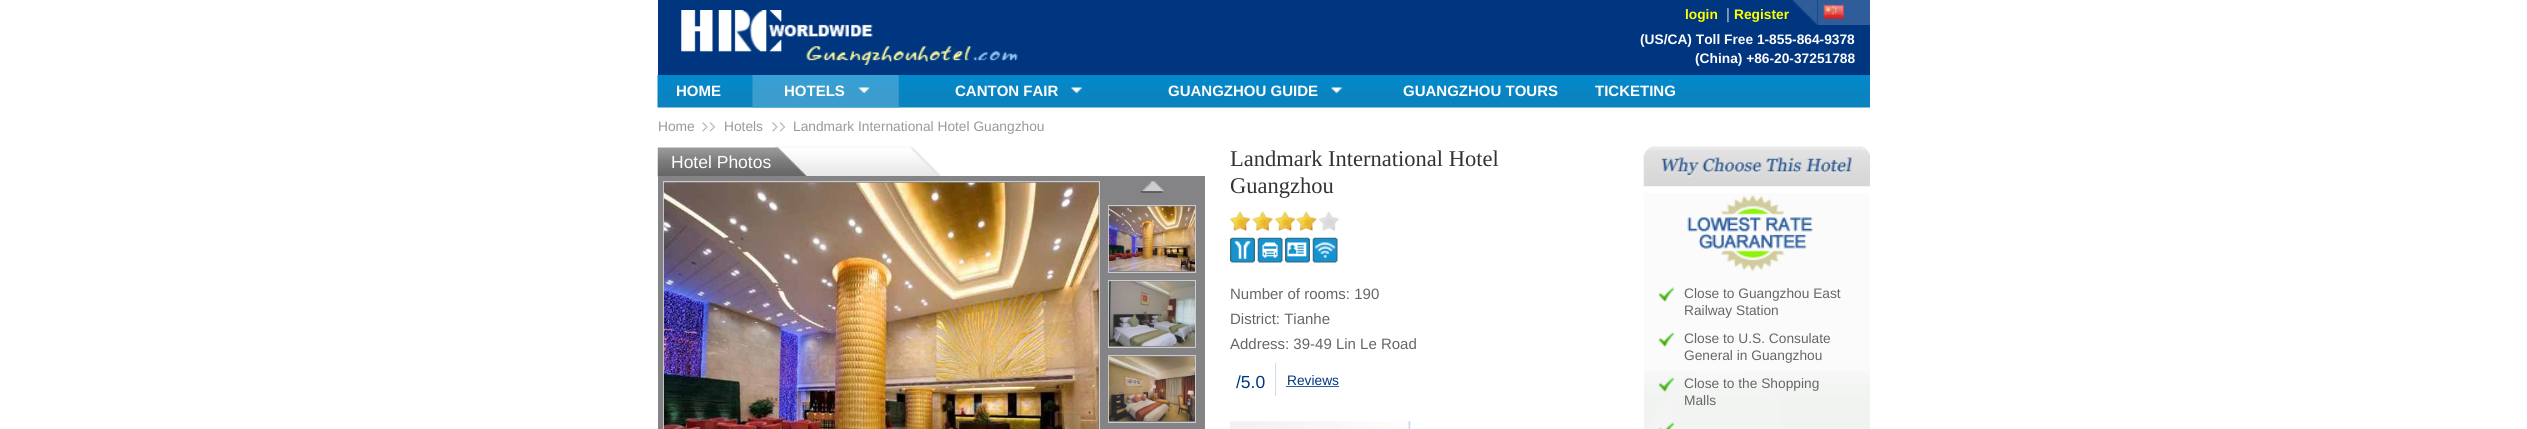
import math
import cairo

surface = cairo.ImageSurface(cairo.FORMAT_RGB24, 2527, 429)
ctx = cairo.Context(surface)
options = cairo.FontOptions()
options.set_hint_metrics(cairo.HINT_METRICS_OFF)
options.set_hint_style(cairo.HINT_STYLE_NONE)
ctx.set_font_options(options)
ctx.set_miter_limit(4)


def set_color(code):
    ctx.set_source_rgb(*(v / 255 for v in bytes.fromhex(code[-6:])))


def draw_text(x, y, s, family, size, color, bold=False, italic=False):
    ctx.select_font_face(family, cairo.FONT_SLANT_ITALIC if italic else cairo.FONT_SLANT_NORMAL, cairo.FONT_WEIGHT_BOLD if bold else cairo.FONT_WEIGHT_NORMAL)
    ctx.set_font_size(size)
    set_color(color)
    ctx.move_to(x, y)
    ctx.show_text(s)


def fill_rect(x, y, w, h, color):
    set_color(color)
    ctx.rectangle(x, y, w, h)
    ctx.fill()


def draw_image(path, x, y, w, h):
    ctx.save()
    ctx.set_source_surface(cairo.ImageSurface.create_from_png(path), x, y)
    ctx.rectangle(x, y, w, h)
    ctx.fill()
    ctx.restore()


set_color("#ffffff")
ctx.paint()
fill_rect(658, 0, 1212, 75, "#003580")
draw_image("assets/img1.png", 681, 10, 337, 55)
draw_text(1685, 19, "login", "Liberation Sans", 13.75, "#ffff00", bold=True)
draw_text(1726, 19, "|", "Liberation Sans", 15, "#cccccc")
draw_text(1734, 19, "Register", "Liberation Sans", 13.75, "#ffff00", bold=True)
fill_rect(1818, 0, 52, 25, "#2f5d9a")
draw_image("assets/img2.png", 1792, 0, 26, 25)
draw_image("assets/img3.png", 1823, 4, 21, 15)
draw_text(1640, 44, "(US/CA) Toll Free 1-855-864-9378", "Liberation Sans", 13.75, "#fefefe", bold=True)
draw_text(1695, 63, "(China) +86-20-37251788", "Liberation Sans", 13.75, "#fefefe", bold=True)
draw_image("assets/img4.png", 657, 75, 1213, 33)
draw_text(676, 96, "HOME", "Liberation Sans", 15, "#fefefe", bold=True)
draw_image("assets/img5.png", 752, 75, 147, 33)
draw_text(784, 96, "HOTELS", "Liberation Sans", 15, "#fefefe", bold=True)
draw_image("assets/img6.png", 858, 87, 12, 7)
draw_text(955, 96, "CANTON FAIR", "Liberation Sans", 15, "#fefefe", bold=True)
draw_image("assets/img7.png", 1071, 87, 12, 7)
draw_text(1168, 96, "GUANGZHOU GUIDE", "Liberation Sans", 15, "#fefefe", bold=True)
draw_image("assets/img7.png", 1331, 87, 12, 7)
draw_text(1403, 96, "GUANGZHOU TOURS", "Liberation Sans", 15, "#fefefe", bold=True)
draw_text(1595, 96, "TICKETING", "Liberation Sans", 15, "#fefefe", bold=True)
draw_text(658, 131, "Home", "Liberation Sans", 13.75, "#999999")
draw_image("assets/img8.png", 702, 122, 13, 10)
draw_text(724, 131, "Hotels", "Liberation Sans", 13.75, "#999999")
draw_image("assets/img9.png", 772, 122, 13, 10)
draw_text(793, 131, "Landmark International Hotel Guangzhou", "Liberation Sans", 13.75, "#999999")
draw_image("assets/img10.png", 657, 146, 284, 31)
draw_text(671, 168, "Hotel Photos", "Liberation Sans", 17.5, "#fefefe")
fill_rect(658, 176, 547, 253, "#848486")
ctx.rectangle(663.5, 181.5, 436, 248)
set_color("#cccccc")
ctx.set_line_width(1)
ctx.stroke()
draw_image("assets/img11.png", 663, 182, 436, 247)
draw_image("assets/img12.png", 1140, 181, 24, 12)
ctx.rectangle(1108.5, 205.5, 87, 67)
ctx.stroke()
draw_image("assets/img13.png", 1108, 206, 87, 66)
ctx.rectangle(1108.5, 280.5, 87, 67)
ctx.stroke()
draw_image("assets/img14.png", 1108, 281, 87, 66)
ctx.rectangle(1108.5, 355.5, 87, 67)
ctx.stroke()
draw_image("assets/img15.png", 1108, 356, 87, 66)
draw_text(1230, 166, "Landmark International Hotel", "Liberation Serif", 22.5, "#333333")
draw_text(1230, 193, "Guangzhou", "Liberation Serif", 22.5, "#333333")
draw_image("assets/img16.png", 1230, 211, 109, 21)
draw_image("assets/img17.png", 1230, 237, 25, 26)
draw_image("assets/img18.png", 1257, 237, 26, 26)
draw_image("assets/img19.png", 1285, 237, 25, 26)
draw_image("assets/img20.png", 1312, 237, 26, 26)
draw_text(1230, 299, "Number of rooms: 190", "Liberation Sans", 15, "#666666")
draw_text(1230, 324, "District: Tianhe", "Liberation Sans", 15, "#666666")
draw_text(1230, 349, "Address: 39-49 Lin Le Road", "Liberation Sans", 15, "#666666")
draw_text(1236, 388, "/5.0", "Liberation Sans", 17.5, "#003680")
fill_rect(1275, 363, 1, 33, "#d1ddea")
draw_text(1287, 385, "Reviews", "Liberation Sans", 13.75, "#003680")
fill_rect(1286, 386, 53, 1, "#2c5e9f")
draw_image("assets/img21.png", 1230, 421, 181, 8)
draw_image("assets/img22.png", 1643, 146, 227, 41)
fill_rect(1644, 193, 226, 178, "#fbfbfb")
draw_image("assets/img23.png", 1644, 371, 226, 58)
draw_image("assets/img24.png", 1687, 195, 126, 77)
draw_image("assets/img25.png", 1658, 287, 16, 15)
draw_text(1684, 298, "Close to Guangzhou East", "Liberation Sans", 13.75, "#666666")
draw_text(1684, 315, "Railway Station", "Liberation Sans", 13.75, "#666666")
draw_image("assets/img26.png", 1658, 332, 16, 15)
draw_text(1684, 343, "Close to U.S. Consulate", "Liberation Sans", 13.75, "#666666")
draw_text(1684, 360, "General in Guangzhou", "Liberation Sans", 13.75, "#666666")
draw_image("assets/img27.png", 1658, 377, 16, 15)
draw_text(1684, 388, "Close to the Shopping", "Liberation Sans", 13.75, "#666666")
draw_text(1684, 405, "Malls", "Liberation Sans", 13.75, "#666666")
draw_image("assets/img28.png", 1658, 422, 16, 7)
surface.write_to_png("output.png")
